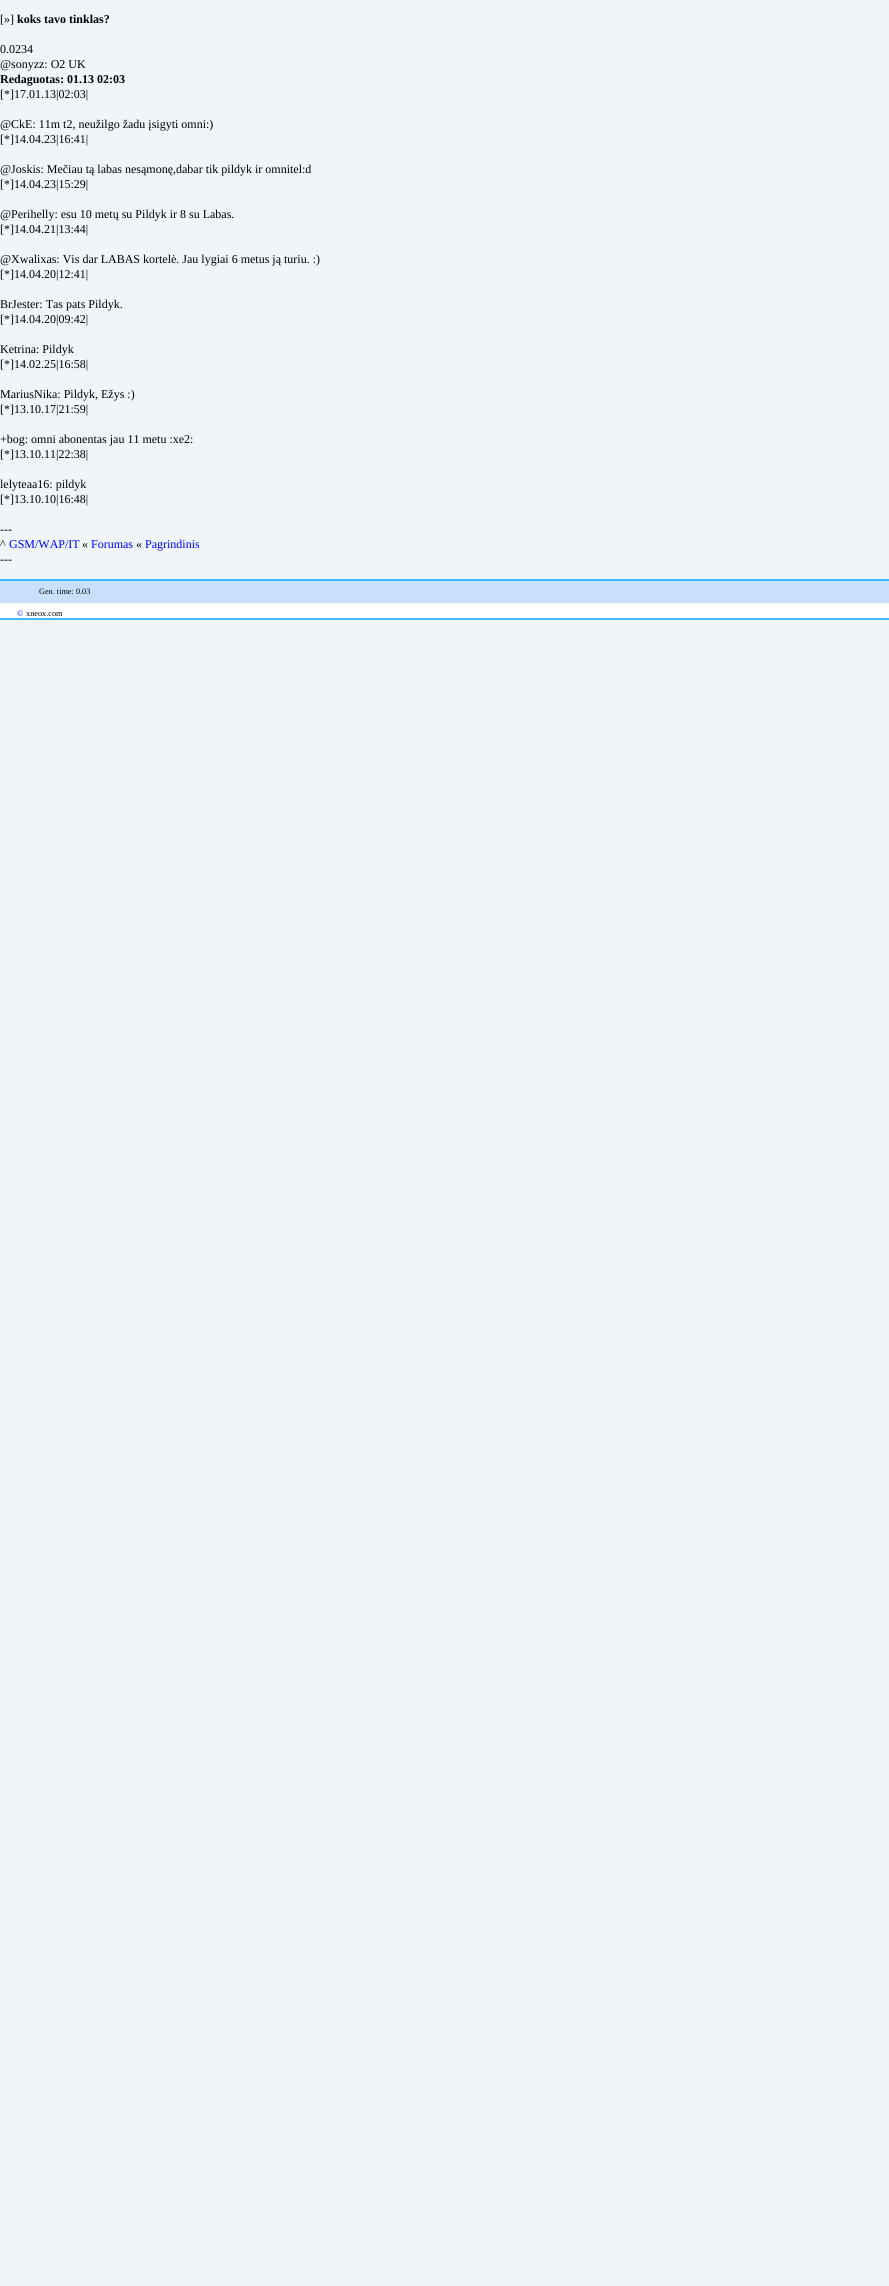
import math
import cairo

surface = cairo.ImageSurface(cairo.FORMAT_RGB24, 889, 2286)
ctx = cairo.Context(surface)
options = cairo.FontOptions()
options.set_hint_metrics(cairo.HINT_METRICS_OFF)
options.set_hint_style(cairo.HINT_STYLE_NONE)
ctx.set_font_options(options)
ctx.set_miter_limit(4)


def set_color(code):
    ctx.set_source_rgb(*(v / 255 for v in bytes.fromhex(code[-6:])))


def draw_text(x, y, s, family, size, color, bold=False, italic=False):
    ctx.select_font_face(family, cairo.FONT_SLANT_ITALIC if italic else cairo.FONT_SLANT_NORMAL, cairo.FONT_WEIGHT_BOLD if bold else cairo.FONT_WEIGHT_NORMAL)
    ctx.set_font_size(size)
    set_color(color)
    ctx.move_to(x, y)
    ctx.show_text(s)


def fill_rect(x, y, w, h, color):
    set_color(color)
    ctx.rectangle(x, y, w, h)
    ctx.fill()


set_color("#f0f5fa")
ctx.paint()
draw_text(0, 23, "[»]", "Liberation Serif", 12, "#000000")
draw_text(17, 23, "koks tavo tinklas?", "Liberation Serif", 12, "#000000", bold=True)
draw_text(0, 53, "0.0234", "Liberation Serif", 12, "#000000")
draw_text(0, 68, "@sonyzz: O2 UK", "Liberation Serif", 12, "#000000")
draw_text(0, 83, "Redaguotas: 01.13 02:03", "Liberation Serif", 12, "#000000", bold=True)
draw_text(0, 98, "[*]17.01.13|02:03|", "Liberation Serif", 12, "#000000")
draw_text(0, 128, "@CkE: 11m t2, neužilgo žadu įsigyti omni:)", "Liberation Serif", 12, "#000000")
draw_text(0, 143, "[*]14.04.23|16:41|", "Liberation Serif", 12, "#000000")
draw_text(0, 173, "@Joskis: Mečiau tą labas nesąmonę,dabar tik pildyk ir omnitel:d", "Liberation Serif", 12, "#000000")
draw_text(0, 188, "[*]14.04.23|15:29|", "Liberation Serif", 12, "#000000")
draw_text(0, 218, "@Perihelly: esu 10 metų su Pildyk ir 8 su Labas.", "Liberation Serif", 12, "#000000")
draw_text(0, 233, "[*]14.04.21|13:44|", "Liberation Serif", 12, "#000000")
draw_text(0, 263, "@Xwalixas: Vis dar LABAS kortelė. Jau lygiai 6 metus ją turiu. :)", "Liberation Serif", 12, "#000000")
draw_text(0, 278, "[*]14.04.20|12:41|", "Liberation Serif", 12, "#000000")
draw_text(0, 308, "BrJester: Tas pats Pildyk.", "Liberation Serif", 12, "#000000")
draw_text(0, 323, "[*]14.04.20|09:42|", "Liberation Serif", 12, "#000000")
draw_text(0, 353, "Ketrina: Pildyk", "Liberation Serif", 12, "#000000")
draw_text(0, 368, "[*]14.02.25|16:58|", "Liberation Serif", 12, "#000000")
draw_text(0, 398, "MariusNika: Pildyk, Ežys :)", "Liberation Serif", 12, "#000000")
draw_text(0, 413, "[*]13.10.17|21:59|", "Liberation Serif", 12, "#000000")
draw_text(0, 443, "+bog: omni abonentas jau 11 metu :xe2:", "Liberation Serif", 12, "#000000")
draw_text(0, 458, "[*]13.10.11|22:38|", "Liberation Serif", 12, "#000000")
draw_text(0, 488, "lelyteaa16: pildyk", "Liberation Serif", 12, "#000000")
draw_text(0, 503, "[*]13.10.10|16:48|", "Liberation Serif", 12, "#000000")
draw_text(0, 533, "---", "Liberation Serif", 12, "#000000")
draw_text(0, 548, "^", "Liberation Serif", 12, "#000000")
draw_text(9, 548, "GSM/WAP/IT", "Liberation Serif", 12, "#0000ff")
draw_text(82, 548, "«", "Liberation Serif", 12, "#000000")
draw_text(91, 548, "Forumas", "Liberation Serif", 12, "#0000ff")
draw_text(136, 548, "«", "Liberation Serif", 12, "#000000")
draw_text(145, 548, "Pagrindinis", "Liberation Serif", 12, "#0000ff")
draw_text(0, 563, "---", "Liberation Serif", 12, "#000000")
fill_rect(0, 579, 889, 2, "#3cb8fb")
fill_rect(0, 581, 889, 22, "#cadffb")
draw_text(39, 594, "Gen. time: 0.03", "Liberation Serif", 8.25, "#000000")
fill_rect(0, 603, 889, 15, "#ffffff")
draw_text(17, 616, "©", "Liberation Serif", 8.25, "#0000ff")
draw_text(26, 616, "xneox.com", "Liberation Serif", 8.25, "#000000")
fill_rect(0, 618, 889, 2, "#3cb8fb")
surface.write_to_png("output.png")
